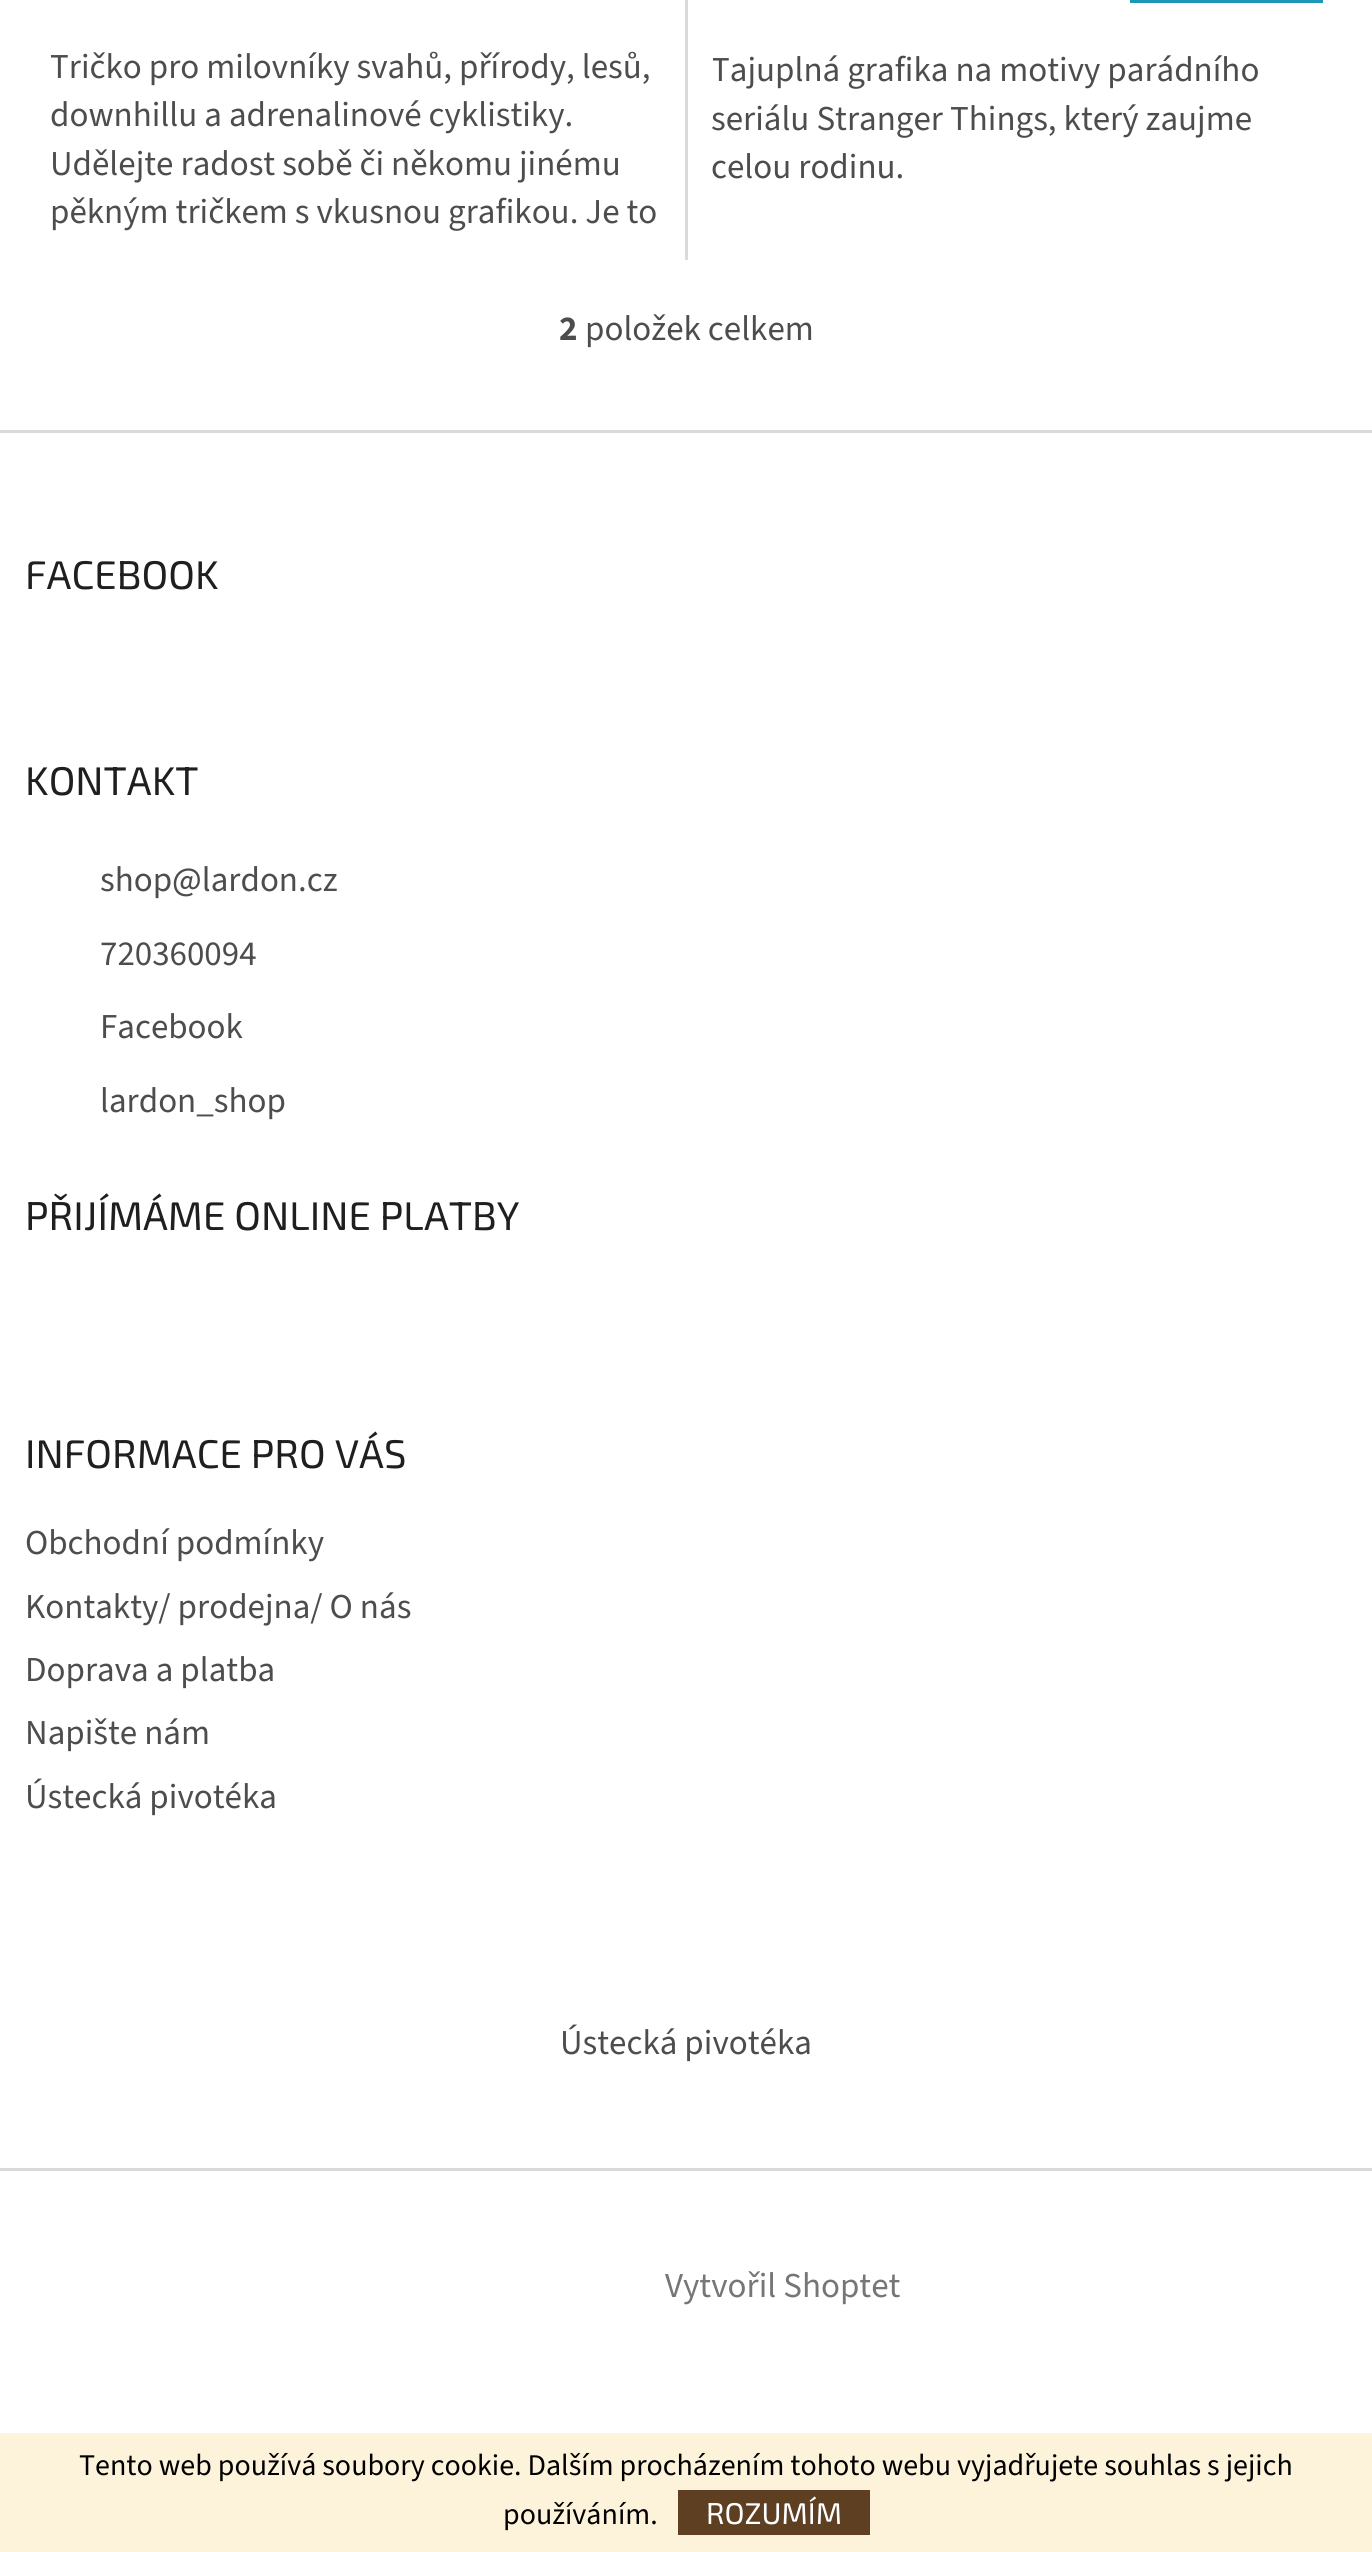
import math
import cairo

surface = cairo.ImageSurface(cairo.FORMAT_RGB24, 1372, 2552)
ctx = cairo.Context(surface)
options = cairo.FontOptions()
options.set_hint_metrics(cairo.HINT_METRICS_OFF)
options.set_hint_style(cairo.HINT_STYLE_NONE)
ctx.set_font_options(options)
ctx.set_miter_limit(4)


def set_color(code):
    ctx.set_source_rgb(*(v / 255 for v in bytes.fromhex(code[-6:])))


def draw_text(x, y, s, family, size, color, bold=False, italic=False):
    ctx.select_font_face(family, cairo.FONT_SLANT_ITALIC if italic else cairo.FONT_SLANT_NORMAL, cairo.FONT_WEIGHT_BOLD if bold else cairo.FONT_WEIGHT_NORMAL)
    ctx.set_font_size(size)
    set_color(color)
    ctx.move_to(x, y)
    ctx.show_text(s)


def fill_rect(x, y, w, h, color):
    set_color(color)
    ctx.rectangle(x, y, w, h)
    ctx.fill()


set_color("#ffffff")
ctx.paint()
fill_rect(685, 0, 3, 260, "#dadada")
draw_text(50, 78, "Tričko pro milovníky svahů, přírody, lesů,", "Source Sans 3", 35, "#4d4d4d")
draw_text(50, 126, "downhillu a adrenalinové cyklistiky.", "Source Sans 3", 35, "#4d4d4d")
draw_text(50, 175, "Udělejte radost sobě či někomu jinému", "Source Sans 3", 35, "#4d4d4d")
draw_text(50, 223, "pěkným tričkem s vkusnou grafikou. Je to", "Source Sans 3", 35, "#4d4d4d")
fill_rect(1130, 0, 193, 3, "#1c97b6")
ctx.save()
ctx.rectangle(713, 50, 610, 145)
ctx.clip()
draw_text(711, 81, "Tajuplná grafika na motivy parádního", "Source Sans 3", 35, "#4d4d4d")
ctx.restore()
draw_text(711, 130, "seriálu Stranger Things, který zaujme", "Source Sans 3", 35, "#4d4d4d")
draw_text(711, 178, "celou rodinu.", "Source Sans 3", 35, "#4d4d4d")
draw_text(559, 340, "2", "Source Sans 3", 35, "#4d4d4d", bold=True)
draw_text(585, 340, "položek celkem", "Source Sans 3", 35, "#4d4d4d")
fill_rect(0, 430, 1372, 3, "#dadada")
draw_text(25, 589, "FACEBOOK", "Exo 2", 40, "#1f1f1f")
draw_text(25, 795, "KONTAKT", "Exo 2", 40, "#1f1f1f")
draw_text(100, 891, "shop@lardon.cz", "Source Sans 3", 35, "#4d4d4d")
draw_text(100, 965, "720360094", "Source Sans 3", 35, "#4d4d4d")
draw_text(100, 1038, "Facebook", "Source Sans 3", 35, "#4d4d4d")
draw_text(100, 1112, "lardon_shop", "Source Sans 3", 35, "#4d4d4d")
draw_text(25, 1230, "PŘIJÍMÁME ONLINE PLATBY", "Exo 2", 40, "#1f1f1f")
draw_text(25, 1468, "INFORMACE PRO VÁS", "Exo 2", 40, "#1f1f1f")
draw_text(25, 1554, "Obchodní podmínky", "Source Sans 3", 35, "#4d4d4d")
draw_text(25, 1618, "Kontakty/ prodejna/ O nás", "Source Sans 3", 35, "#4d4d4d")
draw_text(25, 1681, "Doprava a platba", "Source Sans 3", 35, "#4d4d4d")
draw_text(25, 1744, "Napište nám", "Source Sans 3", 35, "#4d4d4d")
draw_text(25, 1808, "Ústecká pivotéka", "Source Sans 3", 35, "#4d4d4d")
draw_text(560, 2054, "Ústecká pivotéka", "Source Sans 3", 35, "#4d4d4d")
fill_rect(0, 2168, 1372, 3, "#dadada")
draw_text(665, 2297, "Vytvořil Shoptet", "Source Sans 3", 35, "#767676")
fill_rect(0, 2433, 1372, 119, "#fdf3da")
draw_text(79, 2475, "Tento web používá soubory cookie. Dalším procházením tohoto webu vyjadřujete souhlas s jejich", "Source Sans 3", 30, "#000000")
draw_text(503, 2524, "používáním.", "Source Sans 3", 30, "#000000")
fill_rect(678, 2490, 192, 45, "#5e3f22")
draw_text(706, 2524, "ROZUMÍM", "Exo 2", 30, "#ffffff")
surface.write_to_png("output.png")
